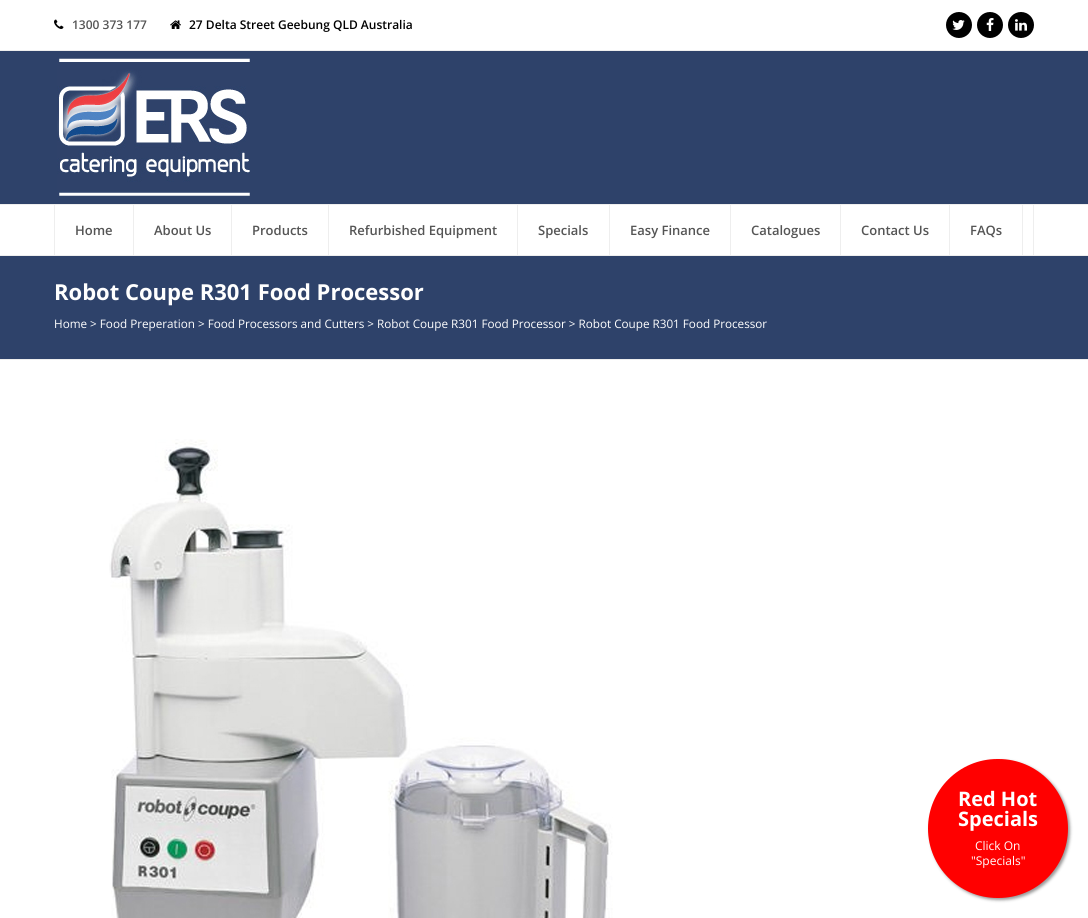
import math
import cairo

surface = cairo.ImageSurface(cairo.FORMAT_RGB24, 1088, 918)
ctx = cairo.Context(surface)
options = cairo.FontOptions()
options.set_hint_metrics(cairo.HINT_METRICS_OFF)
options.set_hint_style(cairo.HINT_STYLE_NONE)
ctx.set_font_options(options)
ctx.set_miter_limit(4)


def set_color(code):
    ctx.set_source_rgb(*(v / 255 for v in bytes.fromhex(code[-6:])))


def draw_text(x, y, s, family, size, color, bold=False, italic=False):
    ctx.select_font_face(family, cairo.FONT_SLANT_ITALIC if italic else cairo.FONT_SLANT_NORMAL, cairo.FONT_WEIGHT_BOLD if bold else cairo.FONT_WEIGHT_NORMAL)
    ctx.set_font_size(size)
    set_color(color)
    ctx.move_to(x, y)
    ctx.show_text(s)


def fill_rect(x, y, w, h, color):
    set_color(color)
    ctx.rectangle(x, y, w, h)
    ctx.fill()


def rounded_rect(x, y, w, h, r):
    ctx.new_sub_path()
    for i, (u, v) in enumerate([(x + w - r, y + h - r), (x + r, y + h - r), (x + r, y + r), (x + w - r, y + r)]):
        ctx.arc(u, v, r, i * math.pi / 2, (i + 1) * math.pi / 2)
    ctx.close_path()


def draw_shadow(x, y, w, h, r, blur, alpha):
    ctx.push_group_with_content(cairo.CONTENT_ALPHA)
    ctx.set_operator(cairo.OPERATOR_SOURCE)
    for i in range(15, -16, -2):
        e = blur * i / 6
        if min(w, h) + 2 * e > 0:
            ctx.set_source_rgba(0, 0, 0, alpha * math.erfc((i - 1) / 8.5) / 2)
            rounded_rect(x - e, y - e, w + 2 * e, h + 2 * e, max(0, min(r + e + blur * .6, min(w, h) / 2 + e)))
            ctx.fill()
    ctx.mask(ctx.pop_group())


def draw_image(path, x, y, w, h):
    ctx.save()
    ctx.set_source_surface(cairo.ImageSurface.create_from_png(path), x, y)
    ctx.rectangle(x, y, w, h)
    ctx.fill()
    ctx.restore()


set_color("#ffffff")
ctx.paint()
fill_rect(0, 50, 1088, 1, "#eeeeee")
draw_image("assets/img1.png", 54, 19, 10, 10)
draw_text(72, 29, "1300 373 177", "Open Sans SemiBold", 12, "#555555")
draw_image("assets/img2.png", 170, 20, 11, 9)
draw_text(189, 29, "27 Delta Street Geebung QLD Australia", "Open Sans SemiBold", 12, "#000000")
ctx.new_path()
ctx.arc(959, 25, 13, 0, 2 * math.pi)
ctx.fill()
draw_image("assets/img3.png", 952, 20, 13, 10)
ctx.arc(990, 25, 13, 0, 2 * math.pi)
ctx.fill()
draw_image("assets/img4.png", 986, 18, 8, 13)
ctx.arc(1021, 25, 13, 0, 2 * math.pi)
ctx.fill()
draw_image("assets/img5.png", 1015, 19, 12, 12)
fill_rect(0, 51, 1088, 153, "#2e426a")
draw_image("assets/img6.png", 57, 58, 193, 138)
fill_rect(0, 204, 1088, 1, "#eeeeee")
fill_rect(1033, 205, 1, 50, "#eeeeee")
fill_rect(54, 205, 1, 50, "#eeeeee")
fill_rect(133, 205, 1, 50, "#eeeeee")
draw_text(75, 235, "Home", "Open Sans SemiBold", 13, "#555555")
fill_rect(231, 205, 1, 50, "#eeeeee")
draw_text(154, 235, "About Us", "Open Sans SemiBold", 13, "#555555")
fill_rect(328, 205, 1, 50, "#eeeeee")
draw_text(252, 235, "Products", "Open Sans SemiBold", 13, "#555555")
fill_rect(517, 205, 1, 50, "#eeeeee")
draw_text(349, 235, "Refurbished Equipment", "Open Sans SemiBold", 13, "#555555")
fill_rect(609, 205, 1, 50, "#eeeeee")
draw_text(538, 235, "Specials", "Open Sans SemiBold", 13, "#555555")
fill_rect(730, 205, 1, 50, "#eeeeee")
draw_text(630, 235, "Easy Finance", "Open Sans SemiBold", 13, "#555555")
fill_rect(840, 205, 1, 50, "#eeeeee")
draw_text(751, 235, "Catalogues", "Open Sans SemiBold", 13, "#555555")
fill_rect(949, 205, 1, 50, "#eeeeee")
draw_text(861, 235, "Contact Us", "Open Sans SemiBold", 13, "#555555")
fill_rect(1022, 205, 1, 50, "#eeeeee")
draw_text(970, 235, "FAQs", "Open Sans SemiBold", 13, "#555555")
fill_rect(0, 256, 1088, 103, "#2e426a")
fill_rect(0, 255, 1088, 1, "#eeeeee")
fill_rect(0, 359, 1088, 1, "#eeeeee")
draw_text(54, 300, "Robot Coupe R301 Food Processor", "Open Sans", 22, "#ffffff", bold=True)
draw_text(54, 328, "Home > Food Preperation > Food Processors and Cutters > Robot Coupe R301 Food Processor > Robot Coupe R301 Food Processor", "Open Sans", 11.7, "#ffffff")
draw_image("assets/img7.png", 109, 439, 504, 479)
set_color("#999999")
draw_shadow(930, 761, 140, 139, 69.5, 1.5, 1)
set_color("#ff0000")
rounded_rect(928, 759, 140, 139, 69.5)
ctx.fill()
draw_text(958, 806, "Red Hot", "Open Sans", 20, "#ffffff", bold=True)
draw_text(958, 826, "Specials", "Open Sans", 20, "#ffffff", bold=True)
draw_text(975, 850, "Click On", "Open Sans", 12, "#ffffff")
draw_text(971, 865, "\"Specials\"", "Open Sans", 12, "#ffffff")
surface.write_to_png("output.png")
